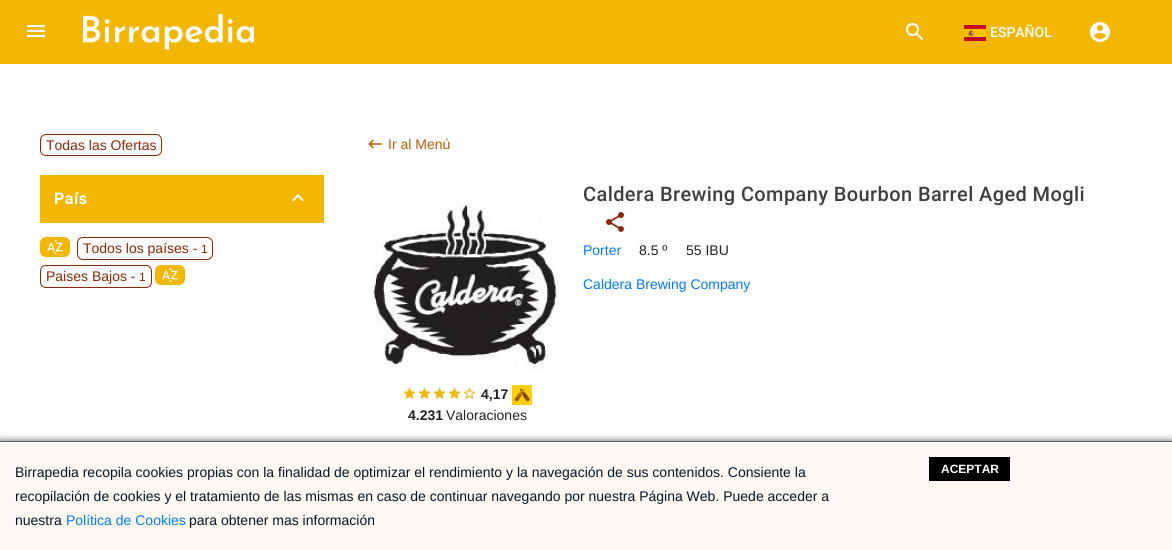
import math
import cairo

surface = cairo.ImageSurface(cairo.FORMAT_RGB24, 1172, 550)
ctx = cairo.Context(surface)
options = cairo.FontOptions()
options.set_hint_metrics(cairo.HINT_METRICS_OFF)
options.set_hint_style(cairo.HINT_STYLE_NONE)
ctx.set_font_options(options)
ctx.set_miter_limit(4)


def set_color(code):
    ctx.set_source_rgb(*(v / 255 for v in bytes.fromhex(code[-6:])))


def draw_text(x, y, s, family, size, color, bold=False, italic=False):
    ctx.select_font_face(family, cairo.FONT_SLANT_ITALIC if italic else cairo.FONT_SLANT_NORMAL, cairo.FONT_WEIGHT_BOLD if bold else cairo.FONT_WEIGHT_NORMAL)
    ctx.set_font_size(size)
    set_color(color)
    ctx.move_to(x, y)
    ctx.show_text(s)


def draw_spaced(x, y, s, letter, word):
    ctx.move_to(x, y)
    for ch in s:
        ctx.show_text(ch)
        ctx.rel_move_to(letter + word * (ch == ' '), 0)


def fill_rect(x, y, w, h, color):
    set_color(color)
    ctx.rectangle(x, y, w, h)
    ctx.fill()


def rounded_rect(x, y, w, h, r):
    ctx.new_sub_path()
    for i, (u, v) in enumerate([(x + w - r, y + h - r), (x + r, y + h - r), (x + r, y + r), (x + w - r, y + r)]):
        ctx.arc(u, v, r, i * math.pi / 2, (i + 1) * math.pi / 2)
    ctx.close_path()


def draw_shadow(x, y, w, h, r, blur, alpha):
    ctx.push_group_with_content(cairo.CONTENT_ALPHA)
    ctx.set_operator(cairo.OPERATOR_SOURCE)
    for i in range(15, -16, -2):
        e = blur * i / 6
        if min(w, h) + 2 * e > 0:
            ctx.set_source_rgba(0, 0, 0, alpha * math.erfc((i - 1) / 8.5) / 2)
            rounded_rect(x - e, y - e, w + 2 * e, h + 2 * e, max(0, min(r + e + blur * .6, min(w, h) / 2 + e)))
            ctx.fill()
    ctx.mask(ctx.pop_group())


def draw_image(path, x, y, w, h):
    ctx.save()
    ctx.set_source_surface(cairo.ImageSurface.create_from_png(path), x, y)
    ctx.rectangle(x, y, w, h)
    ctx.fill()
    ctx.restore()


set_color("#ffffff")
ctx.paint()
fill_rect(0, 0, 1172, 64, "#f2b705")
draw_image("assets/img1.png", 27, 25, 18, 12)
draw_image("assets/img2.png", 83, 14, 171, 36)
draw_image("assets/img3.png", 906, 23, 18, 18)
draw_image("assets/img4.png", 964, 25, 22, 16)
draw_text(990, 37, "ESPAÑOL", "Roboto Medium", 14, "#ffffff")
draw_image("assets/img5.png", 1090, 22, 20, 20)
rounded_rect(40.5, 134.5, 121, 21, 5.5)
set_color("#8c2703")
ctx.set_line_width(1)
ctx.stroke()
draw_text(46, 150, "Todas las Ofertas", "Liberation Sans", 14, "#8c2703")
fill_rect(40, 175, 284, 48, "#f2b705")
ctx.select_font_face("Roboto", cairo.FONT_SLANT_NORMAL, cairo.FONT_WEIGHT_BOLD)
ctx.set_font_size(16)
set_color("#ffffff")
draw_spaced(54, 204, "País", 0.5, 0)
draw_image("assets/img6.png", 292, 194, 12, 8)
set_color("#f2b705")
rounded_rect(40.5, 237.5, 29, 19, 5.5)
ctx.fill_preserve()
ctx.stroke()
draw_image("assets/img7.png", 47, 239, 16, 16)
rounded_rect(77.5, 237.5, 135, 22, 5.5)
set_color("#8c2703")
ctx.stroke()
draw_text(83, 253, "Todos los países -", "Liberation Sans", 14, "#8c2703")
draw_text(201, 253, "1", "Liberation Sans", 12, "#8c2703")
rounded_rect(40.5, 265.5, 111, 22, 5.5)
ctx.stroke()
draw_text(46, 281, "Paises Bajos -", "Liberation Sans", 14, "#8c2703")
draw_text(139, 281, "1", "Liberation Sans", 12, "#8c2703")
set_color("#f2b705")
rounded_rect(155.5, 265.5, 29, 19, 5.5)
ctx.fill_preserve()
ctx.stroke()
draw_image("assets/img7.png", 162, 267, 16, 16)
draw_image("assets/img8.png", 368, 139, 14, 10)
draw_text(388, 149, "Ir al Menú", "Liberation Sans", 14, "#bf5b04")
ctx.select_font_face("Roboto Medium")
ctx.set_font_size(20)
set_color("#3e3e3e")
draw_spaced(583, 201, "Caldera Brewing Company Bourbon Barrel Aged Mogli", 0.4, 0)
draw_image("assets/img9.png", 606, 212, 18, 20)
draw_text(583, 255, "Porter", "Liberation Sans", 14, "#007bff")
draw_text(639, 255, "8.5 º", "Liberation Sans", 14, "#212121")
draw_text(686, 255, "55 IBU", "Liberation Sans", 14, "#212121")
draw_text(583, 289, "Caldera Brewing Company", "Liberation Sans", 14, "#007bff")
draw_image("assets/img10.png", 366, 202, 193, 168)
draw_image("assets/img11.png", 403, 387, 13, 12)
draw_image("assets/img11.png", 418, 387, 13, 12)
draw_image("assets/img11.png", 433, 387, 13, 12)
draw_image("assets/img11.png", 448, 387, 13, 12)
draw_image("assets/img12.png", 463, 387, 13, 12)
draw_text(481, 399, "4,17", "Liberation Sans", 14, "#212121", bold=True)
draw_image("assets/img13.png", 512, 385, 20, 20)
draw_text(408, 420, "4.231", "Liberation Sans", 14, "#212121", bold=True)
draw_text(446, 420, "Valoraciones", "Liberation Sans", 14, "#212121")
set_color("#56636e")
draw_shadow(0, 441, 1172, 109, 0, 4, 1)
fill_rect(0, 442, 1172, 108, "#fff9f4")
fill_rect(0, 441, 1172, 1, "#56636e")
draw_text(15, 477, "Birrapedia recopila cookies propias con la finalidad de optimizar el rendimiento y la navegación de sus contenidos. Consiente la", "Liberation Sans", 14, "#001424")
draw_text(15, 501, "recopilación de cookies y el tratamiento de las mismas en caso de continuar navegando por nuestra Página Web. Puede acceder a", "Liberation Sans", 14, "#001424")
draw_text(15, 525, "nuestra", "Liberation Sans", 14, "#001424")
draw_text(66, 525, "Política de Cookies", "Liberation Sans", 14, "#007bff")
draw_text(189, 525, "para obtener mas información", "Liberation Sans", 14, "#001424")
fill_rect(929, 457, 81, 24, "#000000")
draw_text(941, 473, "ACEPTAR", "Liberation Sans", 12, "#ffffff", bold=True)
surface.write_to_png("output.png")
